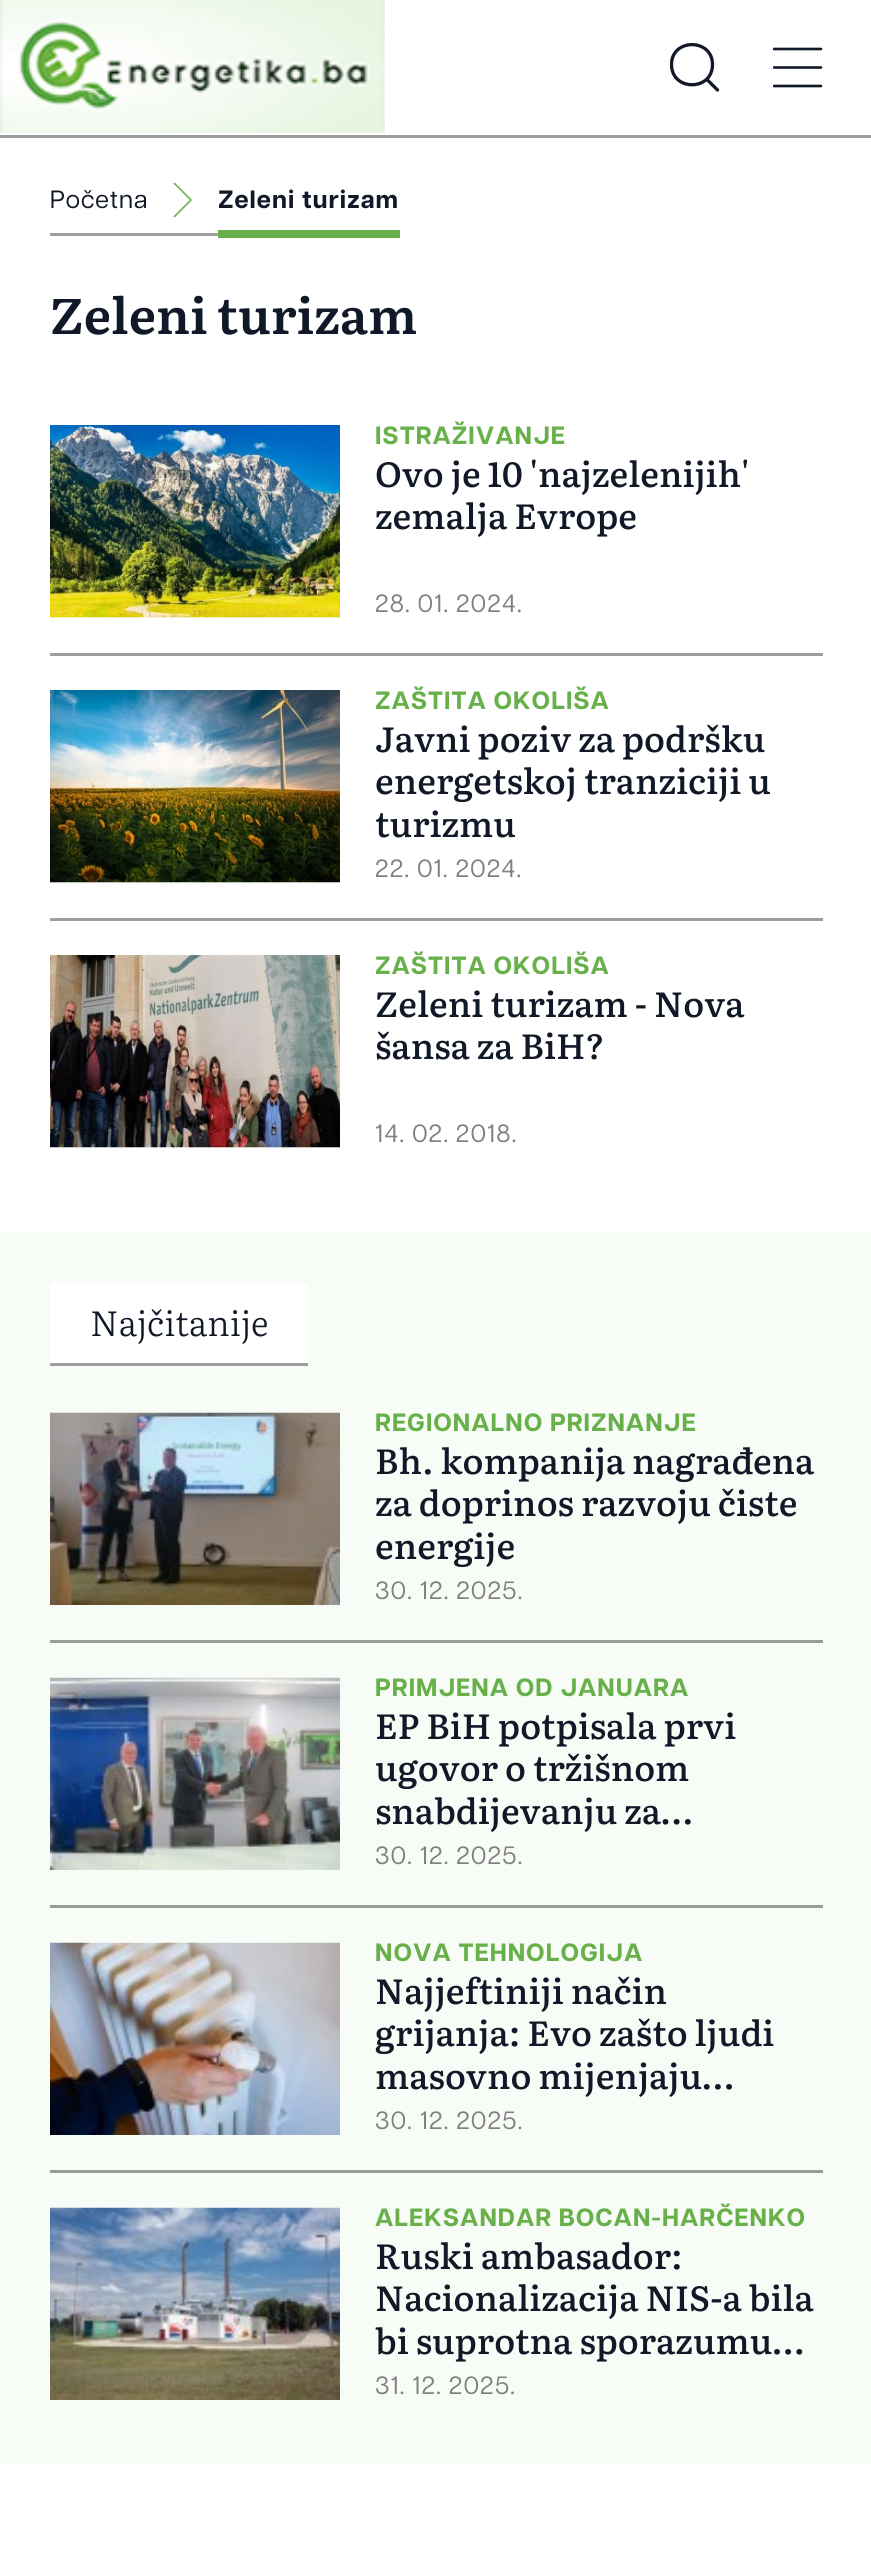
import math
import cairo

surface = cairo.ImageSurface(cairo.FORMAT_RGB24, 871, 2556)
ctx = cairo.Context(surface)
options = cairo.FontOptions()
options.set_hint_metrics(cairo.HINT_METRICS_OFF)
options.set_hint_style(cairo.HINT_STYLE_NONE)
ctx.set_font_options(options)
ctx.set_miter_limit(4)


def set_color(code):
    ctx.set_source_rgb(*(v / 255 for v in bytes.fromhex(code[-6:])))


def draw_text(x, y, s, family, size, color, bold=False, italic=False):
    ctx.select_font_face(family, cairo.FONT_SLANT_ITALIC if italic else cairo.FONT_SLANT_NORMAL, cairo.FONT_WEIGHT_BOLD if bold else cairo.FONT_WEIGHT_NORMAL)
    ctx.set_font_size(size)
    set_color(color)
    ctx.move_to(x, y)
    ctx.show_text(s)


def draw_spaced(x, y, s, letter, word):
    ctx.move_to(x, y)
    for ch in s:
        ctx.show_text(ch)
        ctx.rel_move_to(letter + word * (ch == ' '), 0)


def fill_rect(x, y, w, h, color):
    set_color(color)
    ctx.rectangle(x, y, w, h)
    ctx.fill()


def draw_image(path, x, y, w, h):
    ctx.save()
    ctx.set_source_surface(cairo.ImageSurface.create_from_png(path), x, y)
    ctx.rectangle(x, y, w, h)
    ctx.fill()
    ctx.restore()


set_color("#ffffff")
ctx.paint()
fill_rect(0, 135, 871, 3, "#9e9e9e")
draw_image("assets/img1.png", 0, 0, 385, 133)
ctx.save()
ctx.rectangle(670, 43, 50, 50)
ctx.clip()
ctx.new_path()
ctx.move_to(707.5, 80)
ctx.line_to(717.5, 90)
ctx.move_to(671.5, 64.5)
ctx.curve_to(671.5, 91.5, 712.5, 91.5, 712.5, 64.5)
ctx.curve_to(712.5, 38, 671.5, 38, 671.5, 64.5)
ctx.close_path()
set_color("#111827")
ctx.set_line_width(3.3)
ctx.set_line_cap(cairo.LINE_CAP_ROUND)
ctx.set_line_join(cairo.LINE_JOIN_ROUND)
ctx.stroke()
ctx.restore()
ctx.save()
ctx.rectangle(773, 43, 50, 50)
ctx.clip()
ctx.new_path()
ctx.move_to(774, 49)
ctx.line_to(821, 49)
ctx.move_to(774, 67.5)
ctx.line_to(821, 67.5)
ctx.move_to(774, 86)
ctx.line_to(821, 86)
set_color("#111827")
ctx.set_line_width(2.6)
ctx.set_line_cap(cairo.LINE_CAP_ROUND)
ctx.set_line_join(cairo.LINE_JOIN_ROUND)
ctx.stroke()
ctx.restore()
fill_rect(50, 233, 168, 3, "#9e9e9e")
ctx.select_font_face("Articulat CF")
ctx.set_font_size(25)
set_color("#111827")
draw_spaced(50, 208, "Početna", 1, 0)
ctx.new_path()
ctx.move_to(174.5, 183.5)
ctx.line_to(191, 200)
ctx.line_to(174.5, 216.5)
set_color("#68b04a")
ctx.set_line_width(1.6)
ctx.set_line_cap(cairo.LINE_CAP_ROUND)
ctx.set_line_join(cairo.LINE_JOIN_ROUND)
ctx.stroke()
fill_rect(218, 230, 182, 8, "#68b04a")
ctx.select_font_face("Articulat CF", cairo.FONT_SLANT_NORMAL, cairo.FONT_WEIGHT_BOLD)
set_color("#111827")
draw_spaced(218, 208, "Zeleni turizam", 1, 0)
ctx.select_font_face("Literata SemiBold")
ctx.set_font_size(50)
draw_spaced(50, 334, "Zeleni turizam", 0, -1)
fill_rect(50, 653, 773, 3, "#9e9e9e")
fill_rect(50, 617, 290, 1, "#f7fbf6")
draw_image("assets/img2.png", 50, 425, 290, 193)
ctx.select_font_face("Articulat CF", cairo.FONT_SLANT_NORMAL, cairo.FONT_WEIGHT_BOLD)
ctx.set_font_size(25)
set_color("#68b04a")
draw_spaced(375, 444, "ISTRAŽIVANJE", 1, 0)
draw_text(375, 487, "Ovo je 10 'najzelenijih'", "Literata Medium", 35, "#111827")
draw_text(375, 529, "zemalja Evrope", "Literata Medium", 35, "#111827")
ctx.select_font_face("Articulat CF")
ctx.set_font_size(25)
set_color("#808080")
draw_spaced(375, 612, "28. 01. 2024.", 1, 0)
fill_rect(50, 918, 773, 3, "#9e9e9e")
fill_rect(50, 882, 290, 1, "#f7fbf6")
draw_image("assets/img3.png", 50, 690, 290, 193)
ctx.select_font_face("Articulat CF", cairo.FONT_SLANT_NORMAL, cairo.FONT_WEIGHT_BOLD)
set_color("#68b04a")
draw_spaced(375, 709, "ZAŠTITA OKOLIŠA", 1, 0)
draw_text(375, 752, "Javni poziv za podršku", "Literata Medium", 35, "#111827")
draw_text(375, 794, "energetskoj tranziciji u", "Literata Medium", 35, "#111827")
draw_text(375, 837, "turizmu", "Literata Medium", 35, "#111827")
ctx.select_font_face("Articulat CF")
ctx.set_font_size(25)
set_color("#808080")
draw_spaced(375, 877, "22. 01. 2024.", 1, 0)
fill_rect(50, 1147, 290, 1, "#f7fbf6")
draw_image("assets/img4.png", 50, 955, 290, 193)
ctx.select_font_face("Articulat CF", cairo.FONT_SLANT_NORMAL, cairo.FONT_WEIGHT_BOLD)
set_color("#68b04a")
draw_spaced(375, 974, "ZAŠTITA OKOLIŠA", 1, 0)
draw_text(375, 1017, "Zeleni turizam - Nova", "Literata Medium", 35, "#111827")
draw_text(375, 1059, "šansa za BiH?", "Literata Medium", 35, "#111827")
ctx.select_font_face("Articulat CF")
ctx.set_font_size(25)
set_color("#808080")
draw_spaced(375, 1142, "14. 02. 2018.", 1, 0)
fill_rect(0, 1233, 871, 1230, "#f8fcf7")
fill_rect(50, 1365, 258, 1, "#9a9c99")
fill_rect(50, 1283, 258, 80, "#ffffff")
fill_rect(50, 1363, 258, 2, "#9e9e9e")
draw_text(90, 1336, "Najčitanije", "Literata Light", 35, "#111827")
draw_image("assets/img5.png", 50, 1412, 290, 193)
ctx.select_font_face("Articulat CF", cairo.FONT_SLANT_NORMAL, cairo.FONT_WEIGHT_BOLD)
ctx.set_font_size(25)
set_color("#68b04a")
draw_spaced(375, 1431, "REGIONALNO PRIZNANJE", 1, 0)
draw_text(375, 1474, "Bh. kompanija nagrađena", "Literata Medium", 35, "#111827")
draw_text(375, 1516, "za doprinos razvoju čiste", "Literata Medium", 35, "#111827")
draw_text(375, 1559, "energije", "Literata Medium", 35, "#111827")
ctx.select_font_face("Articulat CF")
ctx.set_font_size(25)
set_color("#808080")
draw_spaced(375, 1599, "30. 12. 2025.", 1, 0)
fill_rect(50, 1640, 773, 3, "#9a9c99")
draw_image("assets/img6.png", 50, 1677, 290, 193)
ctx.select_font_face("Articulat CF", cairo.FONT_SLANT_NORMAL, cairo.FONT_WEIGHT_BOLD)
set_color("#68b04a")
draw_spaced(375, 1696, "PRIMJENA OD JANUARA", 1, 0)
draw_text(375, 1739, "EP BiH potpisala prvi", "Literata Medium", 35, "#111827")
draw_text(375, 1781, "ugovor o tržišnom", "Literata Medium", 35, "#111827")
draw_text(375, 1824, "snabdijevanju za…", "Literata Medium", 35, "#111827")
ctx.select_font_face("Articulat CF")
ctx.set_font_size(25)
set_color("#808080")
draw_spaced(375, 1864, "30. 12. 2025.", 1, 0)
fill_rect(50, 1905, 773, 3, "#9a9c99")
draw_image("assets/img7.png", 50, 1942, 290, 193)
ctx.select_font_face("Articulat CF", cairo.FONT_SLANT_NORMAL, cairo.FONT_WEIGHT_BOLD)
set_color("#68b04a")
draw_spaced(375, 1961, "NOVA TEHNOLOGIJA", 1, 0)
draw_text(375, 2004, "Najjeftiniji način", "Literata Medium", 35, "#111827")
draw_text(375, 2046, "grijanja: Evo zašto ljudi", "Literata Medium", 35, "#111827")
draw_text(375, 2089, "masovno mijenjaju…", "Literata Medium", 35, "#111827")
ctx.select_font_face("Articulat CF")
ctx.set_font_size(25)
set_color("#808080")
draw_spaced(375, 2129, "30. 12. 2025.", 1, 0)
fill_rect(50, 2170, 773, 3, "#9a9c99")
draw_image("assets/img8.png", 50, 2207, 290, 193)
ctx.select_font_face("Articulat CF", cairo.FONT_SLANT_NORMAL, cairo.FONT_WEIGHT_BOLD)
set_color("#68b04a")
draw_spaced(375, 2226, "ALEKSANDAR BOCAN-HARČENKO", 1, 0)
draw_text(375, 2269, "Ruski ambasador:", "Literata Medium", 35, "#111827")
draw_text(375, 2311, "Nacionalizacija NIS-a bila", "Literata Medium", 35, "#111827")
draw_text(375, 2354, "bi suprotna sporazumu…", "Literata Medium", 35, "#111827")
ctx.select_font_face("Articulat CF")
ctx.set_font_size(25)
set_color("#808080")
draw_spaced(375, 2394, "31. 12. 2025.", 1, 0)
surface.write_to_png("output.png")
